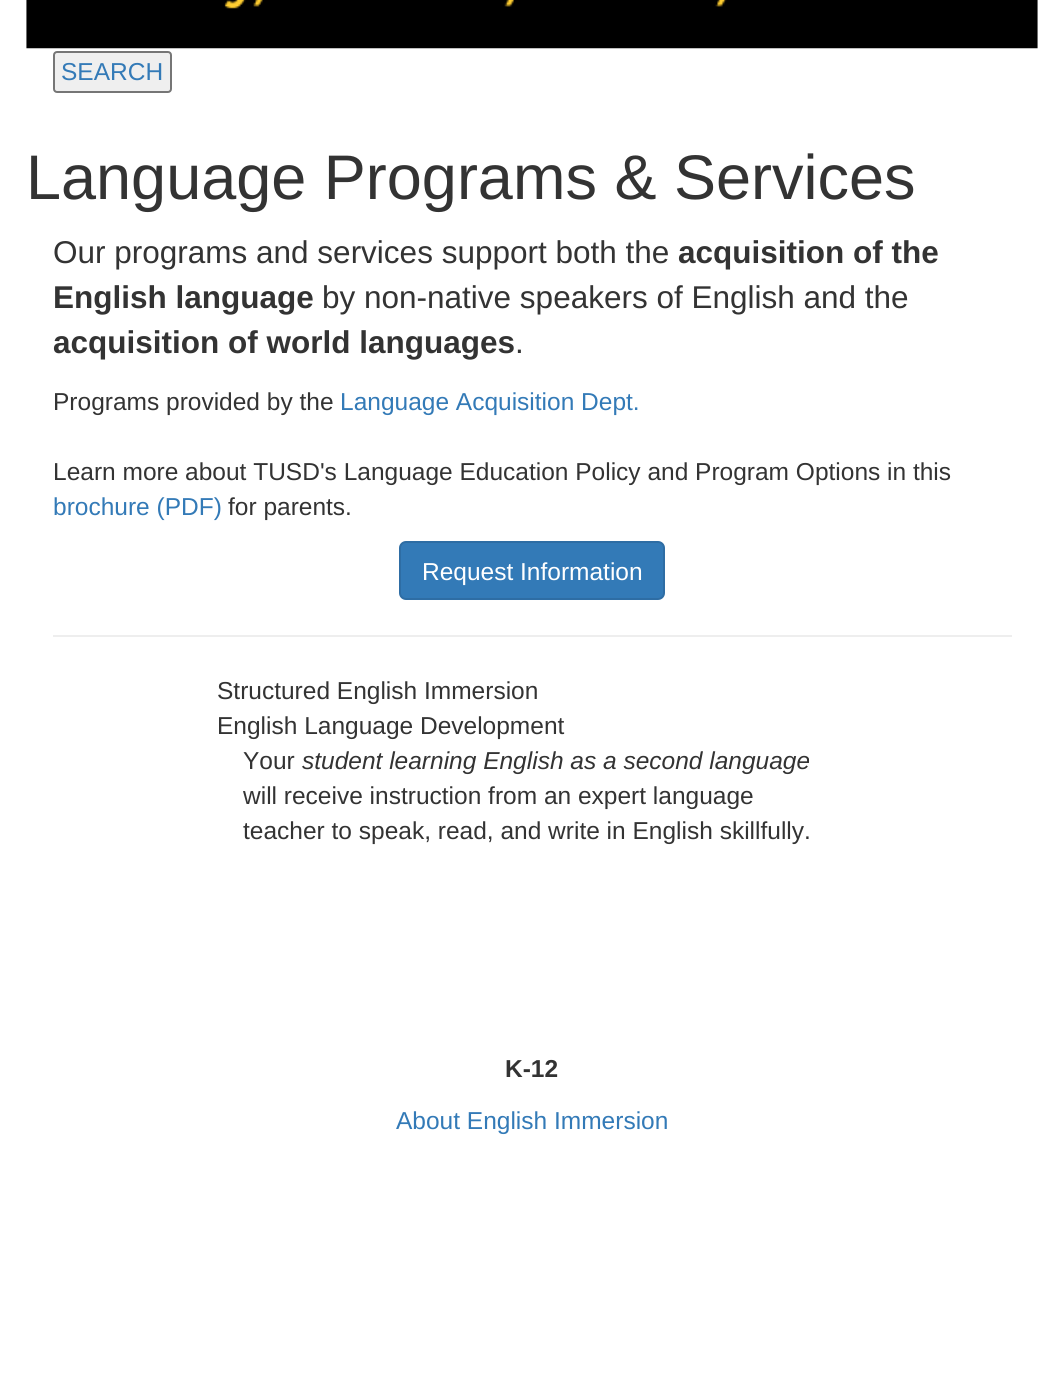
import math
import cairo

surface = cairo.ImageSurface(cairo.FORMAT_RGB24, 1063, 1396)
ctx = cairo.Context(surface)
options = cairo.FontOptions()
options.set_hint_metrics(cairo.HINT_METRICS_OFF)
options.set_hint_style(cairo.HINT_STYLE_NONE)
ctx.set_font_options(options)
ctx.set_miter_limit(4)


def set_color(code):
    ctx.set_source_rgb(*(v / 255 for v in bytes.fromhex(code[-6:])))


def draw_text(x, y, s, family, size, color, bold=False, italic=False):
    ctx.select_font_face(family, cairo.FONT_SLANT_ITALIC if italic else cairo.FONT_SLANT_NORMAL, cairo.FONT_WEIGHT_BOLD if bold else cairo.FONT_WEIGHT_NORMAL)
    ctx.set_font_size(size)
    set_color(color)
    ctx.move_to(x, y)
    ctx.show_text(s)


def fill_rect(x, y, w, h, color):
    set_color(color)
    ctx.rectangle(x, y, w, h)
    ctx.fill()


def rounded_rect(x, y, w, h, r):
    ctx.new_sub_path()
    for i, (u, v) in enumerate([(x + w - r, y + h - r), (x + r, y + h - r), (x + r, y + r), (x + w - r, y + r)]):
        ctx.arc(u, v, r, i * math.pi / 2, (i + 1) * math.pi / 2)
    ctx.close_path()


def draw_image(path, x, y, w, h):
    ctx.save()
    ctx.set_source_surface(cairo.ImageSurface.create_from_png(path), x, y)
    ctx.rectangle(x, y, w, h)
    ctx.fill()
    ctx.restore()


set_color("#ffffff")
ctx.paint()
draw_image("assets/img1.png", 26, 0, 1012, 49)
set_color("#efefef")
rounded_rect(54, 52, 117, 40, 3)
ctx.fill_preserve()
set_color("#767676")
ctx.stroke()
draw_text(61, 80, "SEARCH", "Liberation Sans", 24.5, "#337ab7")
draw_text(26, 199, "Language Programs & Services", "Liberation Sans", 63, "#333333")
draw_text(53, 263, "Our programs and services support both the", "Liberation Sans", 31.5, "#333333")
draw_text(678, 263, "acquisition of the", "Liberation Sans", 31.5, "#333333", bold=True)
draw_text(53, 308, "English language", "Liberation Sans", 31.5, "#333333", bold=True)
draw_text(322, 308, "by non-native speakers of English and the", "Liberation Sans", 31.5, "#333333")
draw_text(53, 353, "acquisition of world languages", "Liberation Sans", 31.5, "#333333", bold=True)
draw_text(515, 353, ".", "Liberation Sans", 31.5, "#333333")
draw_text(53, 410, "Programs provided by the", "Liberation Sans", 24.5, "#333333")
draw_text(340, 410, "Language Acquisition Dept.", "Liberation Sans", 24.5, "#337ab7")
draw_text(53, 480, "Learn more about TUSD's Language Education Policy and Program Options in this", "Liberation Sans", 24.5, "#333333")
draw_text(53, 515, "brochure (PDF)", "Liberation Sans", 24.5, "#337ab7")
draw_text(228, 515, "for parents.", "Liberation Sans", 24.5, "#333333")
set_color("#337ab7")
rounded_rect(400, 542, 264, 57, 6)
ctx.fill_preserve()
set_color("#2e6da4")
ctx.stroke()
draw_text(422, 580, "Request Information", "Liberation Sans", 24.5, "#ffffff")
fill_rect(53, 635, 959, 2, "#eeeeee")
draw_text(217, 699, "Structured English Immersion", "Liberation Sans", 24.5, "#333333")
draw_text(217, 734, "English Language Development", "Liberation Sans", 24.5, "#333333")
draw_text(243, 769, "Your", "Liberation Sans", 24.5, "#333333")
draw_text(302, 769, "student learning English as a second language", "Liberation Sans", 24.5, "#333333", italic=True)
draw_text(243, 804, "will receive instruction from an expert language", "Liberation Sans", 24.5, "#333333")
draw_text(243, 839, "teacher to speak, read, and write in English skillfully.", "Liberation Sans", 24.5, "#333333")
draw_text(505, 1077, "K-12", "Liberation Sans", 24.5, "#333333", bold=True)
draw_text(396, 1129, "About English Immersion", "Liberation Sans", 24.5, "#337ab7")
surface.write_to_png("output.png")
